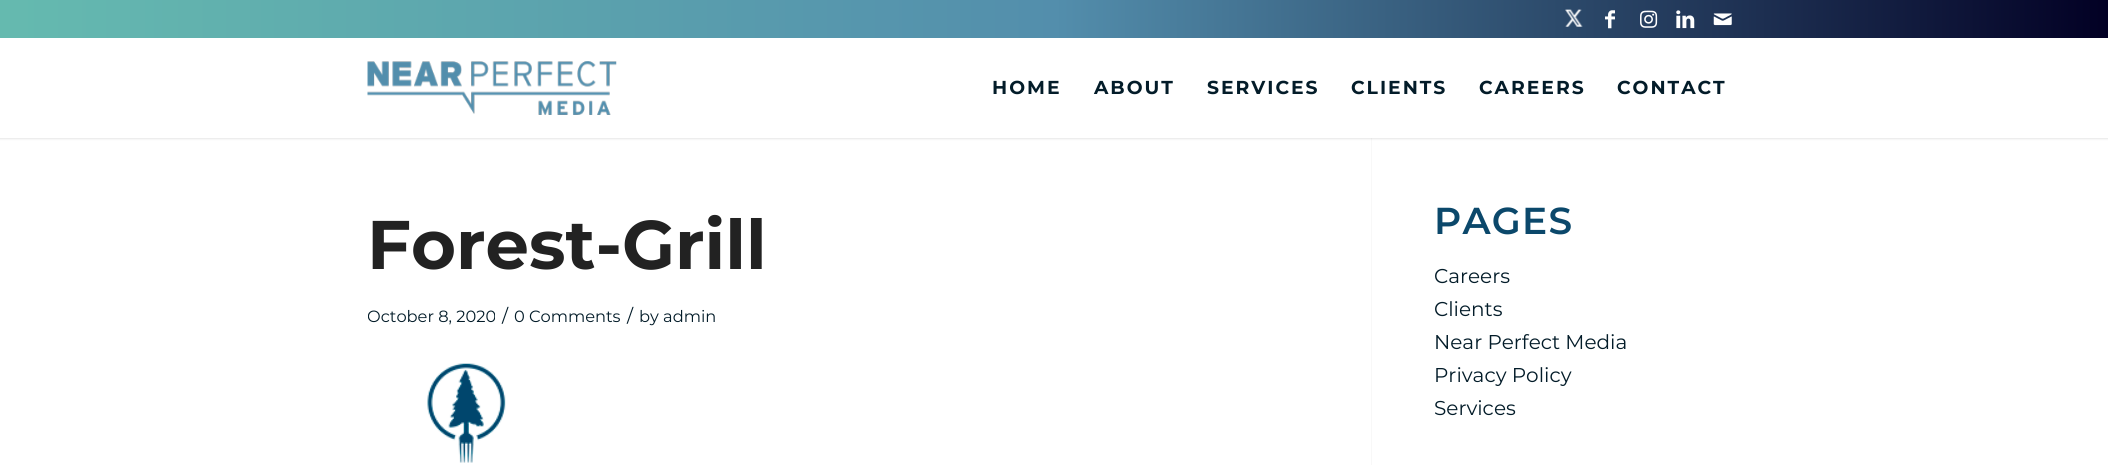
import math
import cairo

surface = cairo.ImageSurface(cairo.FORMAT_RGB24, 2108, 465)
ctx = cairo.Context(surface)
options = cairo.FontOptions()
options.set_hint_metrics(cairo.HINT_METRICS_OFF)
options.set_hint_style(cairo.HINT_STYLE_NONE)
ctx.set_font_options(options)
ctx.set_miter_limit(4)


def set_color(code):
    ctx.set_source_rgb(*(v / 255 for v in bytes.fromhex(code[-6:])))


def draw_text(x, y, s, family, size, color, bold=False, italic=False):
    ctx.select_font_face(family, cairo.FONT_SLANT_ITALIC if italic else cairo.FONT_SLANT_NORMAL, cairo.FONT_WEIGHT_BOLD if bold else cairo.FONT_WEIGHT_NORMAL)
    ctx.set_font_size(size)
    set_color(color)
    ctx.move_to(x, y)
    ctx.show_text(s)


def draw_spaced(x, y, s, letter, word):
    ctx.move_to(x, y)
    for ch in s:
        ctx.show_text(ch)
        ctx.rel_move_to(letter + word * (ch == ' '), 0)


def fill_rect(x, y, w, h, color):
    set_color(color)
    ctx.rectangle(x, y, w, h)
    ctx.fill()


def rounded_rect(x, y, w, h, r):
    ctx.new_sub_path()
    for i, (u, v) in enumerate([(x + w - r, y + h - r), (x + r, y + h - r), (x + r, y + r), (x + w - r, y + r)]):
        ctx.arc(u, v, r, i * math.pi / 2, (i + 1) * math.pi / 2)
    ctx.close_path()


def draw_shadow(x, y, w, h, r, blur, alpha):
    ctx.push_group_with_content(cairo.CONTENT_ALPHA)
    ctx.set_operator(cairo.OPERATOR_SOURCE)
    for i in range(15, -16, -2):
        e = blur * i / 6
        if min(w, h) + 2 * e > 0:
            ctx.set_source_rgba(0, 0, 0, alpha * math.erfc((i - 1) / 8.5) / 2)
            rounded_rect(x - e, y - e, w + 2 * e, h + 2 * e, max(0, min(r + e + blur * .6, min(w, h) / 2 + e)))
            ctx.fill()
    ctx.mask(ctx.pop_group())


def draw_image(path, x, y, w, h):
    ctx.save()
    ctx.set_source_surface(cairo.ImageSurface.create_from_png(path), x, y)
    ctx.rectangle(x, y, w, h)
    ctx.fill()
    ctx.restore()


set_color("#ffffff")
ctx.paint()
fill_rect(1371, 138, 1, 327, "#f8f8f8")
set_color("#000000")
draw_shadow(-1, -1, 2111, 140, 0, 1, 0.1)
gradient = cairo.LinearGradient(0, 19, 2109, 19)
gradient.add_color_stop_rgba(0, 0.396, 0.729, 0.686, 1)
gradient.add_color_stop_rgba(0.5, 0.325, 0.557, 0.675, 1)
gradient.add_color_stop_rgba(1, 0.008, 0, 0.141, 1)
ctx.set_source(gradient)
ctx.rectangle(0, 0, 2108, 38)
ctx.fill()
draw_image("assets/img1.png", 1565, 9, 18, 18)
draw_image("assets/img2.png", 1605, 10, 10, 19)
draw_image("assets/img3.png", 1640, 10, 18, 18)
draw_image("assets/img4.png", 1676, 10, 19, 19)
draw_image("assets/img5.png", 1713, 13, 19, 13)
fill_rect(0, 38, 2108, 100, "#ffffff")
draw_image("assets/img6.png", 367, 61, 250, 54)
ctx.select_font_face("Montserrat", cairo.FONT_SLANT_NORMAL, cairo.FONT_WEIGHT_BOLD)
ctx.set_font_size(18.75)
set_color("#031c29")
draw_spaced(992, 94, "HOME", 2, 0)
draw_spaced(1094, 94, "ABOUT", 2, 0)
draw_spaced(1207, 94, "SERVICES", 2, 0)
draw_spaced(1351, 94, "CLIENTS", 2, 0)
draw_spaced(1479, 94, "CAREERS", 2, 0)
draw_spaced(1617, 94, "CONTACT", 2, 0)
draw_text(367, 269, "Forest-Grill", "Montserrat", 68.75, "#222222", bold=True)
ctx.save()
ctx.rectangle(368, 200, 1003, 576)
ctx.clip()
draw_text(367, 322, "October 8, 2020", "Montserrat", 16.25, "#031c29")
ctx.restore()
draw_text(502, 322, "/", "Montserrat", 18, "#031c29")
draw_text(514, 322, "0 Comments", "Montserrat", 16.25, "#031c29")
draw_text(627, 322, "/", "Montserrat", 18, "#031c29")
draw_text(639, 322, "by admin", "Montserrat", 16.25, "#031c29")
draw_image("assets/img7.png", 427, 363, 79, 100)
ctx.select_font_face("Montserrat SemiBold")
ctx.set_font_size(37.5)
set_color("#0b486b")
draw_spaced(1434, 234, "PAGES", 1.25, 0)
draw_text(1434, 283, "Careers", "Montserrat", 20, "#031c29")
draw_text(1434, 316, "Clients", "Montserrat", 20, "#031c29")
draw_text(1434, 349, "Near Perfect Media", "Montserrat", 20, "#031c29")
draw_text(1434, 382, "Privacy Policy", "Montserrat", 20, "#031c29")
draw_text(1434, 415, "Services", "Montserrat", 20, "#031c29")
surface.write_to_png("output.png")
